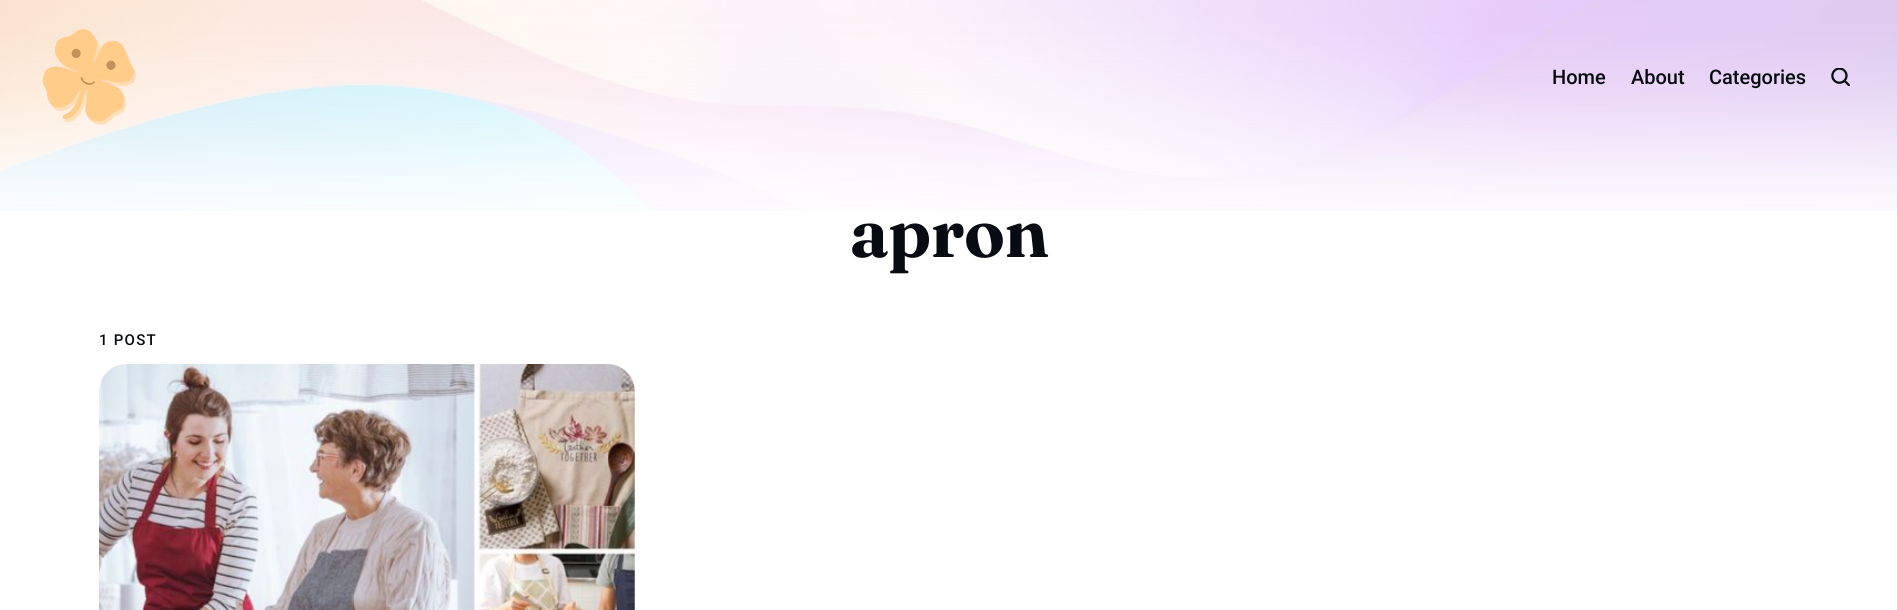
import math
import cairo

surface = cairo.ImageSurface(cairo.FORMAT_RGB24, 1897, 610)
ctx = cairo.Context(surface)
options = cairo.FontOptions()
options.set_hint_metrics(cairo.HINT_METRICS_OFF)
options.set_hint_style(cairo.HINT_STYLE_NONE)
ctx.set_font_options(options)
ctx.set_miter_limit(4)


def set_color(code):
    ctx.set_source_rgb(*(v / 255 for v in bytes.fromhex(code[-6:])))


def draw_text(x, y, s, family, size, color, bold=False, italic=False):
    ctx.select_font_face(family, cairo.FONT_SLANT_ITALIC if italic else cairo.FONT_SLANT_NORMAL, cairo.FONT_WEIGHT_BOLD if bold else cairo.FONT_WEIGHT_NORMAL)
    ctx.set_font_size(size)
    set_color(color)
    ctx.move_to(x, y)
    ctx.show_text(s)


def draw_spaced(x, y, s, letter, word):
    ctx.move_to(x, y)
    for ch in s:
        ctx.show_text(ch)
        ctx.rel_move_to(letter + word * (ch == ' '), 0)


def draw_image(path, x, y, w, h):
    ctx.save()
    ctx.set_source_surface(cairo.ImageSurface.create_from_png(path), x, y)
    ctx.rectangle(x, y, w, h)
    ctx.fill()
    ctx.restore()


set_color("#ffffff")
ctx.paint()
draw_image("assets/img1.png", 0, 0, 1897, 211)
draw_image("assets/img2.png", 42, 29, 94, 96)
draw_text(1552, 84, "Home", "Roboto Medium", 20, "#080b12")
draw_text(1631, 84, "About", "Roboto Medium", 20, "#080b12")
draw_text(1709, 84, "Categories", "Roboto Medium", 20, "#080b12")
draw_image("assets/img3.png", 1831, 68, 19, 18)
draw_text(850, 257, "apron", "Fraunces", 70, "#080b12", bold=True)
ctx.select_font_face("Roboto Medium")
ctx.set_font_size(15)
draw_spaced(99, 345, "1 POST", 1.25, 0)
draw_image("assets/img4.png", 99, 364, 536, 246)
surface.write_to_png("output.png")
